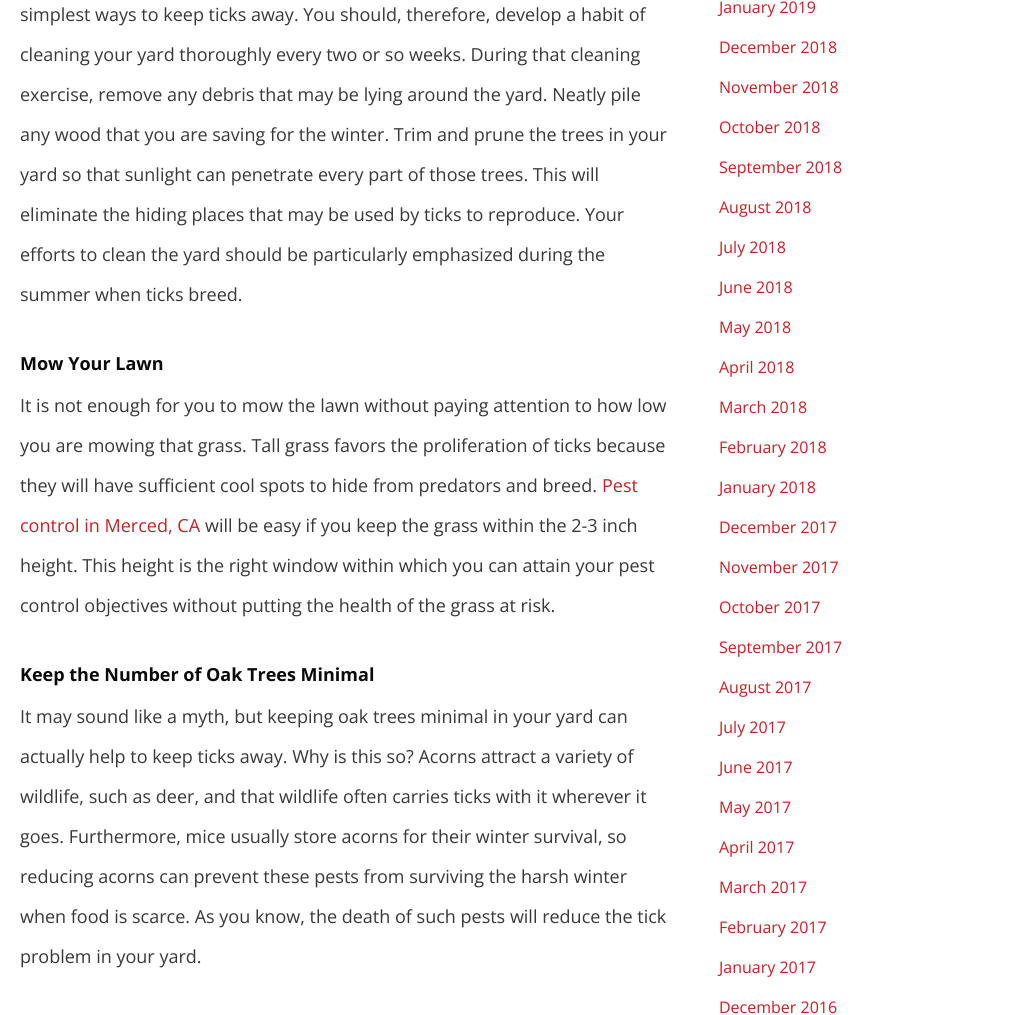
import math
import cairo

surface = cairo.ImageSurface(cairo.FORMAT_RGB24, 1036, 1015)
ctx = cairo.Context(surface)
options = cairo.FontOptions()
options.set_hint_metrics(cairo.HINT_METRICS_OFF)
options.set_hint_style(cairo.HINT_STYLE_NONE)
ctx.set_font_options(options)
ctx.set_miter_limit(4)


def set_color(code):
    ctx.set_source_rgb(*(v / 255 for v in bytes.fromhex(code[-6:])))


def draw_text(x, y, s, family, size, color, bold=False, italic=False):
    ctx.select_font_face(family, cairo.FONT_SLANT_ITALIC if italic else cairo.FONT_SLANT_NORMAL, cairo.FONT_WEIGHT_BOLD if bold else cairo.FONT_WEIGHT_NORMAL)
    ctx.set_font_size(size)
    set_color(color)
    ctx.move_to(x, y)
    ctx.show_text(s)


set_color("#ffffff")
ctx.paint()
draw_text(20, 21, "simplest ways to keep ticks away. You should, therefore, develop a habit of", "Open Sans", 18, "#383838")
draw_text(20, 61, "cleaning your yard thoroughly every two or so weeks. During that cleaning", "Open Sans", 18, "#383838")
draw_text(20, 101, "exercise, remove any debris that may be lying around the yard. Neatly pile", "Open Sans", 18, "#383838")
draw_text(20, 141, "any wood that you are saving for the winter. Trim and prune the trees in your", "Open Sans", 18, "#383838")
draw_text(20, 181, "yard so that sunlight can penetrate every part of those trees. This will", "Open Sans", 18, "#383838")
draw_text(20, 221, "eliminate the hiding places that may be used by ticks to reproduce. Your", "Open Sans", 18, "#383838")
draw_text(20, 261, "efforts to clean the yard should be particularly emphasized during the", "Open Sans", 18, "#383838")
draw_text(20, 301, "summer when ticks breed.", "Open Sans", 18, "#383838")
draw_text(20, 370, "Mow Your Lawn", "Open Sans", 18, "#0a0a0a", bold=True)
draw_text(20, 412, "It is not enough for you to mow the lawn without paying attention to how low", "Open Sans", 18, "#383838")
draw_text(20, 452, "you are mowing that grass. Tall grass favors the proliferation of ticks because", "Open Sans", 18, "#383838")
draw_text(20, 492, "they will have sufficient cool spots to hide from predators and breed.", "Open Sans", 18, "#383838")
draw_text(602, 492, "Pest", "Open Sans", 18, "#c52026")
draw_text(20, 532, "control in Merced, CA", "Open Sans", 18, "#c52026")
draw_text(205, 532, "will be easy if you keep the grass within the 2-3 inch", "Open Sans", 18, "#383838")
draw_text(20, 572, "height. This height is the right window within which you can attain your pest", "Open Sans", 18, "#383838")
draw_text(20, 612, "control objectives without putting the health of the grass at risk.", "Open Sans", 18, "#383838")
draw_text(20, 681, "Keep the Number of Oak Trees Minimal", "Open Sans", 18, "#0a0a0a", bold=True)
draw_text(20, 723, "It may sound like a myth, but keeping oak trees minimal in your yard can", "Open Sans", 18, "#383838")
draw_text(20, 763, "actually help to keep ticks away. Why is this so? Acorns attract a variety of", "Open Sans", 18, "#383838")
draw_text(20, 803, "wildlife, such as deer, and that wildlife often carries ticks with it wherever it", "Open Sans", 18, "#383838")
draw_text(20, 843, "goes. Furthermore, mice usually store acorns for their winter survival, so", "Open Sans", 18, "#383838")
draw_text(20, 883, "reducing acorns can prevent these pests from surviving the harsh winter", "Open Sans", 18, "#383838")
draw_text(20, 923, "when food is scarce. As you know, the death of such pests will reduce the tick", "Open Sans", 18, "#383838")
draw_text(20, 963, "problem in your yard.", "Open Sans", 18, "#383838")
draw_text(719, 13, "January 2019", "Open Sans", 16, "#c52026")
draw_text(719, 53, "December 2018", "Open Sans", 16, "#c52026")
draw_text(719, 93, "November 2018", "Open Sans", 16, "#c52026")
draw_text(719, 133, "October 2018", "Open Sans", 16, "#c52026")
draw_text(719, 173, "September 2018", "Open Sans", 16, "#c52026")
draw_text(719, 213, "August 2018", "Open Sans", 16, "#c52026")
draw_text(719, 253, "July 2018", "Open Sans", 16, "#c52026")
draw_text(719, 293, "June 2018", "Open Sans", 16, "#c52026")
draw_text(719, 333, "May 2018", "Open Sans", 16, "#c52026")
draw_text(719, 373, "April 2018", "Open Sans", 16, "#c52026")
draw_text(719, 413, "March 2018", "Open Sans", 16, "#c52026")
draw_text(719, 453, "February 2018", "Open Sans", 16, "#c52026")
draw_text(719, 493, "January 2018", "Open Sans", 16, "#c52026")
draw_text(719, 533, "December 2017", "Open Sans", 16, "#c52026")
draw_text(719, 573, "November 2017", "Open Sans", 16, "#c52026")
draw_text(719, 613, "October 2017", "Open Sans", 16, "#c52026")
draw_text(719, 653, "September 2017", "Open Sans", 16, "#c52026")
draw_text(719, 693, "August 2017", "Open Sans", 16, "#c52026")
draw_text(719, 733, "July 2017", "Open Sans", 16, "#c52026")
draw_text(719, 773, "June 2017", "Open Sans", 16, "#c52026")
draw_text(719, 813, "May 2017", "Open Sans", 16, "#c52026")
draw_text(719, 853, "April 2017", "Open Sans", 16, "#c52026")
draw_text(719, 893, "March 2017", "Open Sans", 16, "#c52026")
draw_text(719, 933, "February 2017", "Open Sans", 16, "#c52026")
draw_text(719, 973, "January 2017", "Open Sans", 16, "#c52026")
draw_text(719, 1013, "December 2016", "Open Sans", 16, "#c52026")
surface.write_to_png("output.png")
